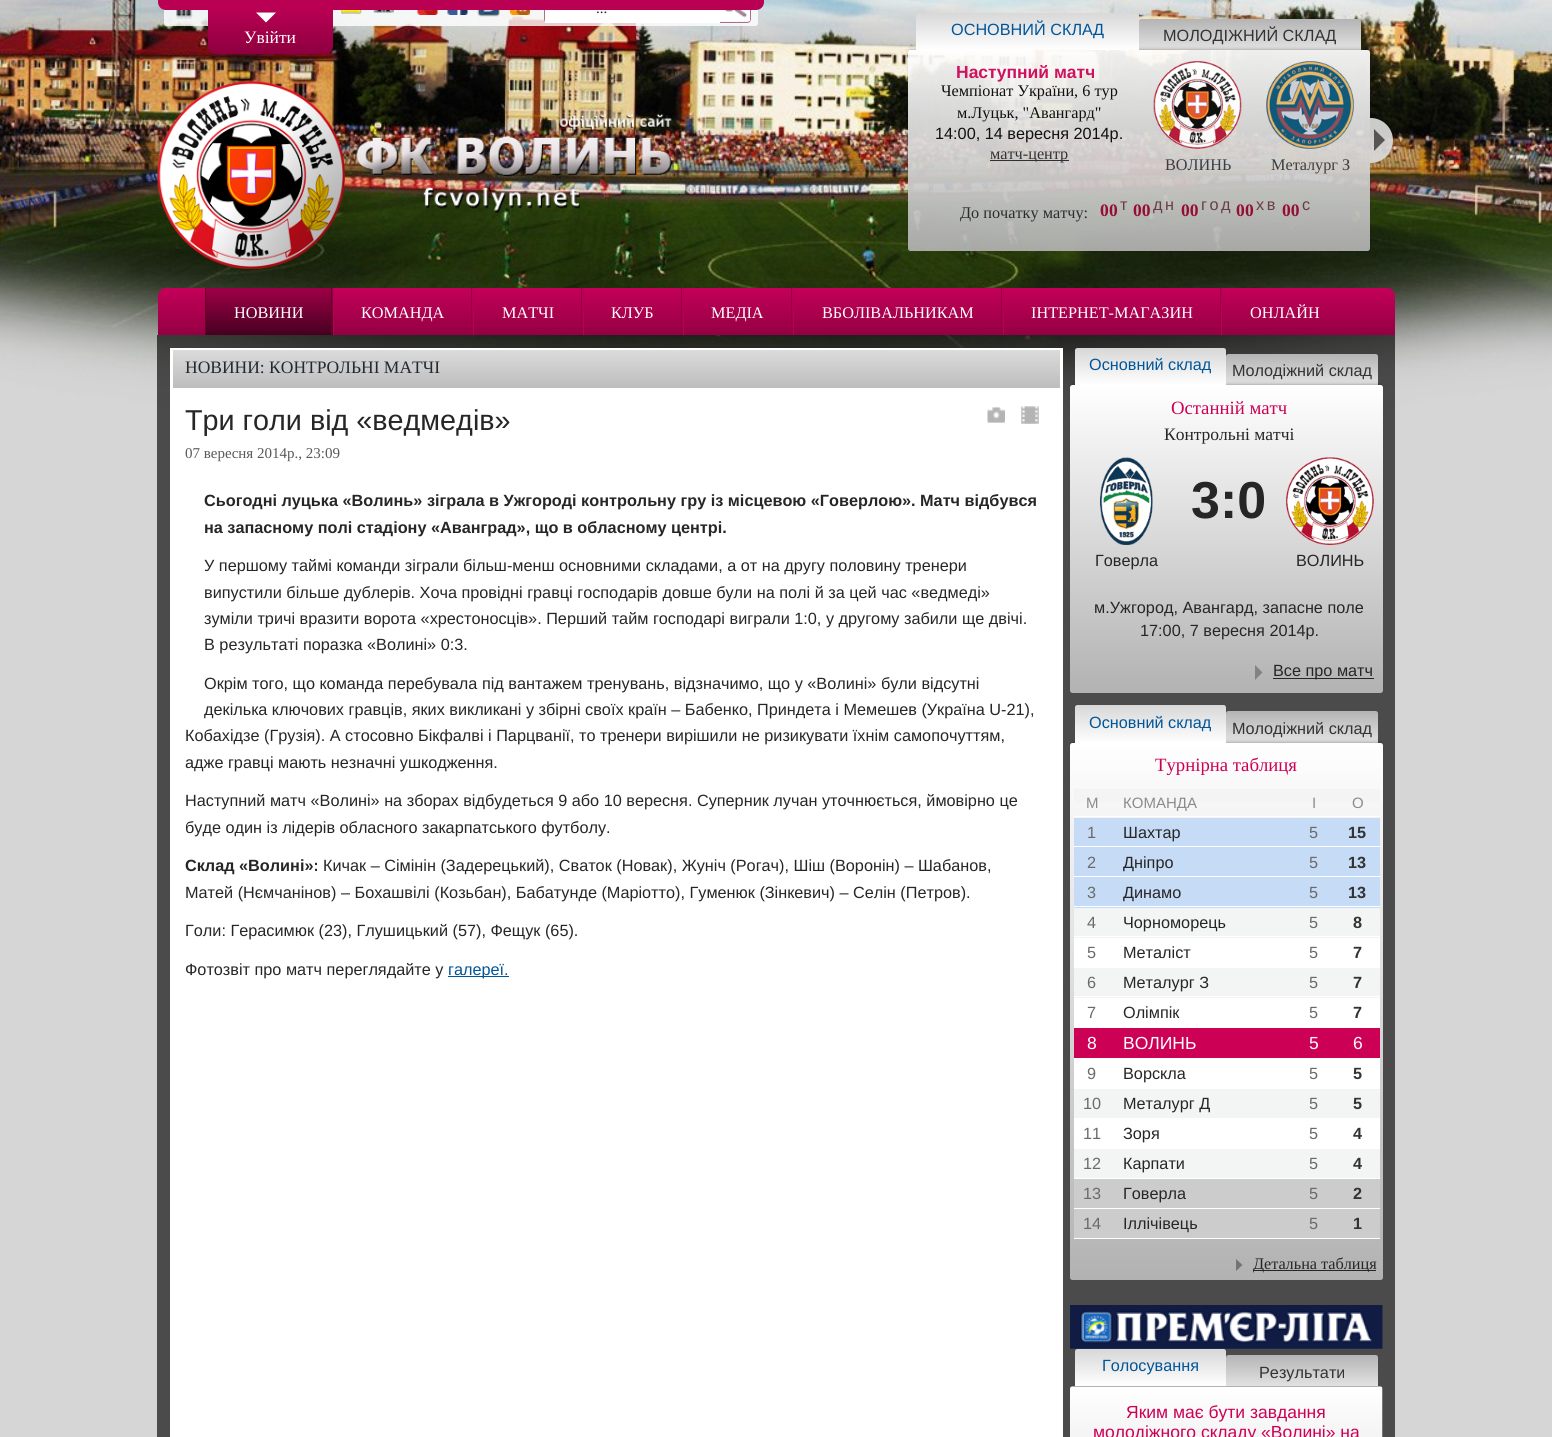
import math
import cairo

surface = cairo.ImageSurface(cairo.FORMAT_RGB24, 1552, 1437)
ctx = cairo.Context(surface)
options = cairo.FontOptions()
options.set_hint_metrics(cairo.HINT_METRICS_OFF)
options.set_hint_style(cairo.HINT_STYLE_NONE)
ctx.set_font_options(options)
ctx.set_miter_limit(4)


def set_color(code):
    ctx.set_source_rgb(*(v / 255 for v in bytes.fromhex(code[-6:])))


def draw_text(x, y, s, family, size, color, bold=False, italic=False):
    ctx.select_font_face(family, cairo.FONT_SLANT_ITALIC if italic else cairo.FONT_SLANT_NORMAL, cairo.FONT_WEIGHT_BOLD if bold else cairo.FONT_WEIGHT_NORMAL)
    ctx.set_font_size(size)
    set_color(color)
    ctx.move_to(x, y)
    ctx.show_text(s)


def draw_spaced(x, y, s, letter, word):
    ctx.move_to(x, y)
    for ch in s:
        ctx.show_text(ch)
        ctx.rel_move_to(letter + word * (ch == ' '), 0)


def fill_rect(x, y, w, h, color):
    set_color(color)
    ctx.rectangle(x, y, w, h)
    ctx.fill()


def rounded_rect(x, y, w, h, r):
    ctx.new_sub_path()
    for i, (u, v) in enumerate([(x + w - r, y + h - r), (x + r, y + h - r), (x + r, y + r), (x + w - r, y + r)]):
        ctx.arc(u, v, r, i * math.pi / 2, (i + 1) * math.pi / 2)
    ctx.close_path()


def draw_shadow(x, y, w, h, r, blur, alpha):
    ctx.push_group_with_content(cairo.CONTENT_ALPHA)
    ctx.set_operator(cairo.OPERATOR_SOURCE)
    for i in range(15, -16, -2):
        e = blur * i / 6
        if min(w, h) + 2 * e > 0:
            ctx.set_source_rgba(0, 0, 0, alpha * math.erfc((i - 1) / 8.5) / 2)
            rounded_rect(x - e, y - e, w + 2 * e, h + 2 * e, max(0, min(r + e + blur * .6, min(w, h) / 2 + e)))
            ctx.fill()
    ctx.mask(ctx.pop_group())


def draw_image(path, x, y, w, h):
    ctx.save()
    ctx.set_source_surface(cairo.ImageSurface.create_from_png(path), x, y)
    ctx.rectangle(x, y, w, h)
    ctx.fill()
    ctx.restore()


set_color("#d6d6d6")
ctx.paint()
draw_image("assets/img1.png", 0, 0, 1552, 420)
ctx.set_source_rgba(1, 1, 1, 0.8)
ctx.new_path()
ctx.move_to(164, -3)
ctx.line_to(758, -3)
ctx.line_to(758, 23.5)
ctx.curve_to(758, 25, 757, 26, 755.5, 26)
ctx.line_to(166.5, 26)
ctx.curve_to(165, 26, 164, 25, 164, 23.5)
ctx.close_path()
ctx.fill()
draw_image("assets/img2.png", 175, 10, 18, 9)
draw_image("assets/img3.png", 341, 10, 21, 4)
draw_image("assets/img4.png", 373, 10, 21, 3)
draw_image("assets/img5.png", 417, 10, 21, 5)
draw_image("assets/img6.png", 447, 10, 21, 5)
draw_image("assets/img7.png", 477, 10, 23, 7)
draw_image("assets/img8.png", 510, 10, 20, 5)
rounded_rect(544.5, -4.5, 206, 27, 3.5)
set_color("#b06b89")
ctx.set_line_width(1)
ctx.stroke()
fill_rect(545, 10, 175, 13, "#ffffff")
draw_text(596, 13, "...", "Liberation Serif", 15, "#262626")
fill_rect(720, 10, 30, 11, "#ffffff")
draw_image("assets/img9.png", 724, 10, 23, 8)
set_color("#b90053")
ctx.new_path()
ctx.move_to(158, -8)
ctx.line_to(764, -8)
ctx.line_to(764, 2)
ctx.curve_to(764, 6.5, 760.5, 10, 756, 10)
ctx.line_to(166, 10)
ctx.curve_to(161.5, 10, 158, 6.5, 158, 2)
ctx.close_path()
ctx.fill()
gradient = cairo.LinearGradient(270, 10, 270, 54)
gradient.add_color_stop_rgba(0, 0.725, 0, 0.325, 1)
gradient.add_color_stop_rgba(1, 0.553, 0, 0.247, 1)
ctx.set_source(gradient)
ctx.new_path()
ctx.move_to(208, 10)
ctx.line_to(333, 10)
ctx.line_to(333, 46)
ctx.curve_to(333, 50.5, 329.5, 54, 325, 54)
ctx.line_to(216, 54)
ctx.curve_to(211.5, 54, 208, 50.5, 208, 46)
ctx.close_path()
ctx.fill()
set_color("#ffffff")
ctx.new_path()
ctx.move_to(256, 12.5)
ctx.line_to(276, 12.5)
ctx.line_to(266, 22.5)
ctx.close_path()
ctx.fill()
draw_text(244, 43, "Увійти", "Liberation Serif", 17.5, "#ffffff")
gradient = cairo.LinearGradient(1250, 19, 1250, 56)
gradient.add_color_stop_rgba(0, 0.706, 0.706, 0.706, 1)
gradient.add_color_stop_rgba(1, 0.925, 0.925, 0.925, 1)
ctx.set_source(gradient)
ctx.new_path()
ctx.move_to(1141.5, 19)
ctx.line_to(1358.5, 19)
ctx.curve_to(1360, 19, 1361, 20, 1361, 21.5)
ctx.line_to(1361, 50)
ctx.line_to(1139, 50)
ctx.line_to(1139, 21.5)
ctx.curve_to(1139, 20, 1140, 19, 1141.5, 19)
ctx.close_path()
ctx.fill()
ctx.save()
ctx.set_fill_rule(cairo.FILL_RULE_EVEN_ODD)
ctx.new_path()
ctx.move_to(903, 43)
ctx.line_to(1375, 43)
ctx.line_to(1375, 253)
ctx.line_to(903, 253)
ctx.close_path()
ctx.move_to(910.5, 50)
ctx.line_to(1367.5, 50)
ctx.curve_to(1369, 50, 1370, 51, 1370, 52.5)
ctx.line_to(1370, 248.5)
ctx.curve_to(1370, 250, 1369, 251, 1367.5, 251)
ctx.line_to(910.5, 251)
ctx.curve_to(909, 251, 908, 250, 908, 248.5)
ctx.line_to(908, 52.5)
ctx.curve_to(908, 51, 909, 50, 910.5, 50)
ctx.close_path()
ctx.clip()
set_color("#000000")
draw_shadow(910, 50, 458, 196, 0, 2, 0.37)
ctx.restore()
gradient = cairo.LinearGradient(1028, 12, 1028, 50)
gradient.add_color_stop_rgba(0, 0.843, 0.843, 0.843, 1)
gradient.add_color_stop_rgba(1, 1, 1, 1, 1)
ctx.set_source(gradient)
ctx.new_path()
ctx.move_to(918.5, 13)
ctx.line_to(1136.5, 13)
ctx.curve_to(1138, 13, 1139, 14, 1139, 15.5)
ctx.line_to(1139, 50)
ctx.line_to(916, 50)
ctx.line_to(916, 15.5)
ctx.curve_to(916, 14, 917, 13, 918.5, 13)
ctx.close_path()
ctx.fill()
draw_text(951, 35, "ОСНОВНИЙ СКЛАД", "Liberation Sans", 16.25, "#005599")
draw_text(1163, 41, "МОЛОДІЖНИЙ СКЛАД", "Liberation Sans", 16.25, "#333333")
gradient = cairo.LinearGradient(1139, 50, 1139, 251)
gradient.add_color_stop_rgba(0, 1, 1, 1, 0.93)
gradient.add_color_stop_rgba(1, 0.698, 0.698, 0.698, 0.93)
ctx.set_source(gradient)
rounded_rect(908, 50, 462, 201, 2.5)
ctx.fill()
draw_text(956, 78, "Наступний матч", "Liberation Sans", 17.5, "#cf1160", bold=True)
draw_text(941, 96, "Чемпіонат України, 6 тур", "Liberation Serif", 16.25, "#101010")
draw_text(957, 118, "м.Луцьк, \"Авангард\"", "Liberation Serif", 16.25, "#101010")
draw_text(935, 139, "14:00, 14 вересня 2014р.", "Liberation Sans", 16.25, "#101010")
ctx.set_source_rgba(0.149, 0.149, 0.149, 0.93)
ctx.rectangle(990, 160, 79, 1)
ctx.fill()
draw_text(990, 159, "матч-центр", "Liberation Serif", 16.25, "#333333")
draw_image("assets/img10.png", 1153, 61, 89, 88)
draw_text(1165, 170, "ВОЛИНЬ", "Liberation Serif", 16.25, "#3e3e3e")
draw_image("assets/img11.png", 1266, 61, 88, 88)
draw_text(1271, 170, "Металург З", "Liberation Serif", 16.25, "#3e3e3e")
draw_text(960, 218, "До початку матчу:", "Liberation Serif", 16.25, "#2b2c2b")
draw_text(1100, 216, "0", "Liberation Serif", 17.5, "#960d34", bold=True)
draw_text(1109, 216, "0", "Liberation Serif", 17.5, "#960d34", bold=True)
ctx.select_font_face("Liberation Sans")
ctx.set_font_size(16.25)
set_color("#683d48")
draw_spaced(1120, 210, "т", 2.5, 0)
draw_text(1133, 216, "00", "Liberation Serif", 17.5, "#960d34", bold=True)
ctx.select_font_face("Liberation Sans")
ctx.set_font_size(16.25)
set_color("#683d48")
draw_spaced(1153, 210, "дн", 2.5, 0)
draw_text(1181, 216, "00", "Liberation Serif", 17.5, "#960d34", bold=True)
ctx.select_font_face("Liberation Sans")
ctx.set_font_size(16.25)
set_color("#683d48")
draw_spaced(1201, 210, "год", 2.5, 0)
draw_text(1236, 216, "0", "Liberation Serif", 17.5, "#960d34", bold=True)
draw_text(1245, 216, "0", "Liberation Serif", 17.5, "#960d34", bold=True)
ctx.select_font_face("Liberation Sans")
ctx.set_font_size(16.25)
set_color("#683d48")
draw_spaced(1256, 210, "хв", 2.5, 0)
draw_text(1282, 216, "00", "Liberation Serif", 17.5, "#960d34", bold=True)
ctx.select_font_face("Liberation Sans")
ctx.set_font_size(16.25)
set_color("#683d48")
draw_spaced(1302, 210, "с", 2.5, 0)
ctx.set_source_rgba(0.851, 0.851, 0.851, 0.93)
ctx.new_path()
ctx.move_to(1370, 118)
ctx.line_to(1370.5, 118)
ctx.curve_to(1383, 118, 1393, 128, 1393, 140.5)
ctx.curve_to(1393, 153, 1383, 163, 1370.5, 163)
ctx.line_to(1370, 163)
ctx.close_path()
ctx.fill()
ctx.set_source_rgba(0.302, 0.302, 0.302, 0.93)
ctx.new_path()
ctx.move_to(1374, 151)
ctx.line_to(1374, 129)
ctx.line_to(1385, 140)
ctx.close_path()
ctx.fill()
draw_image("assets/img12.png", 157, 81, 188, 188)
draw_image("assets/img13.png", 356, 113, 316, 100)
gradient = cairo.LinearGradient(776, 287, 776, 335)
gradient.add_color_stop_rgba(0, 0.773, 0, 0.349, 1)
gradient.add_color_stop_rgba(1, 0.58, 0, 0.263, 1)
ctx.set_source(gradient)
ctx.new_path()
ctx.move_to(166, 288)
ctx.line_to(1387, 288)
ctx.curve_to(1391.5, 288, 1395, 291.5, 1395, 296)
ctx.line_to(1395, 335)
ctx.line_to(158, 335)
ctx.line_to(158, 296)
ctx.curve_to(158, 291.5, 161.5, 288, 166, 288)
ctx.close_path()
ctx.fill()
gradient = cairo.LinearGradient(269, 288, 269, 335)
gradient.add_color_stop_rgba(0, 0.62, 0, 0.278, 1)
gradient.add_color_stop_rgba(1, 0.275, 0, 0.125, 1)
ctx.set_source(gradient)
ctx.rectangle(206, 288, 127, 47)
ctx.fill()
fill_rect(331, 288, 1, 47, "#64002a")
fill_rect(205, 288, 1, 47, "#64002a")
draw_text(234, 318, "НОВИНИ", "Liberation Serif", 16.25, "#ffffff")
fill_rect(471, 288, 1, 47, "#940043")
fill_rect(333, 288, 1, 47, "#bb0054")
draw_text(361, 318, "КОМАНДА", "Liberation Serif", 16.25, "#ffffff")
fill_rect(581, 288, 1, 47, "#940043")
fill_rect(473, 288, 1, 47, "#bb0054")
draw_text(502, 318, "МАТЧІ", "Liberation Serif", 16.25, "#ffffff")
fill_rect(681, 288, 1, 47, "#940043")
fill_rect(583, 288, 1, 47, "#bb0054")
draw_text(611, 318, "КЛУБ", "Liberation Serif", 16.25, "#ffffff")
fill_rect(791, 288, 1, 47, "#940043")
fill_rect(683, 288, 1, 47, "#bb0054")
draw_text(711, 318, "МЕДІА", "Liberation Serif", 16.25, "#ffffff")
fill_rect(1001, 288, 1, 47, "#940043")
fill_rect(793, 288, 1, 47, "#bb0054")
draw_text(822, 318, "ВБОЛІВАЛЬНИКАМ", "Liberation Serif", 16.25, "#ffffff")
fill_rect(1220, 288, 1, 47, "#940043")
fill_rect(1003, 288, 1, 47, "#bb0054")
draw_text(1031, 318, "ІНТЕРНЕТ-МАГАЗИН", "Liberation Serif", 16.25, "#ffffff")
fill_rect(1221, 288, 1, 47, "#bb0054")
draw_text(1250, 318, "ОНЛАЙН", "Liberation Serif", 16.25, "#ffffff")
ctx.set_source_rgba(0, 0, 0, 0.65)
ctx.rectangle(157, 335, 1238, 1102)
ctx.fill()
ctx.rectangle(171.5, 349.5, 890, 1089)
set_color("#ffffff")
ctx.set_line_width(3)
ctx.stroke()
fill_rect(173, 388, 887, 1049, "#ffffff")
gradient = cairo.LinearGradient(616, 350, 616, 388)
gradient.add_color_stop_rgba(0, 0.859, 0.859, 0.859, 1)
gradient.add_color_stop_rgba(1, 0.741, 0.741, 0.741, 1)
ctx.set_source(gradient)
ctx.rectangle(173, 350, 887, 38)
ctx.fill()
draw_text(185, 373, "НОВИНИ: КОНТРОЛЬНІ МАТЧІ", "Liberation Serif", 17.5, "#212932")
draw_text(185, 430, "Три голи від «ведмедів»", "Liberation Sans", 28.75, "#262626")
draw_image("assets/img14.png", 987, 407, 18, 16)
draw_image("assets/img15.png", 1021, 406, 18, 18)
draw_text(185, 458, "07 вересня 2014р., 23:09", "Liberation Serif", 15, "#595959")
draw_text(204, 506, "Сьогодні луцька «Волинь» зіграла в Ужгороді контрольну гру із місцевою «Говерлою». Матч відбувся", "Liberation Sans", 16.25, "#262626", bold=True)
draw_text(204, 533, "на запасному полі стадіону «Аванград», що в обласному центрі.", "Liberation Sans", 16.25, "#262626", bold=True)
draw_text(204, 571, "У першому таймі команди зіграли більш-менш основними складами, а от на другу половину тренери", "Liberation Sans", 16.25, "#262626")
draw_text(204, 598, "випустили більше дублерів. Хоча провідні гравці господарів довше були на полі й за цей час «ведмеді»", "Liberation Sans", 16.25, "#262626")
draw_text(204, 624, "зуміли тричі вразити ворота «хрестоносців». Перший тайм господарі виграли 1:0, у другому забили ще двічі.", "Liberation Sans", 16.25, "#262626")
draw_text(204, 650, "В результаті поразка «Волині» 0:3.", "Liberation Sans", 16.25, "#262626")
draw_text(204, 689, "Окрім того, що команда перебувала під вантажем тренувань, відзначимо, що у «Волині» були відсутні", "Liberation Sans", 16.25, "#262626")
draw_text(204, 715, "декілька ключових гравців, яких викликані у збірні своїх країн – Бабенко, Приндета і Мемешев (Україна U-21),", "Liberation Sans", 16.25, "#262626")
draw_text(185, 741, "Кобахідзе (Грузія). А стосовно Бікфалві і Парцванії, то тренери вирішили не ризикувати їхнім самопочуттям,", "Liberation Sans", 16.25, "#262626")
draw_text(185, 768, "адже гравці мають незначні ушкодження.", "Liberation Sans", 16.25, "#262626")
draw_text(185, 806, "Наступний матч «Волині» на зборах відбудеться 9 або 10 вересня. Суперник лучан уточнюється, ймовірно це", "Liberation Sans", 16.25, "#262626")
draw_text(185, 833, "буде один із лідерів обласного закарпатського футболу.", "Liberation Sans", 16.25, "#262626")
draw_text(185, 871, "Склад «Волині»:", "Liberation Sans", 16.25, "#262626", bold=True)
draw_text(323, 871, "Кичак – Сімінін (Задерецький), Сваток (Новак), Жуніч (Рогач), Шіш (Воронін) – Шабанов,", "Liberation Sans", 16.25, "#262626")
draw_text(185, 898, "Матей (Нємчанінов) – Бохашвілі (Козьбан), Бабатунде (Маріотто), Гуменюк (Зінкевич) – Селін (Петров).", "Liberation Sans", 16.25, "#262626")
draw_text(185, 936, "Голи: Герасимюк (23), Глушицький (57), Фещук (65).", "Liberation Sans", 16.25, "#262626")
draw_text(185, 975, "Фотозвіт про матч переглядайте у", "Liberation Sans", 16.25, "#262626")
fill_rect(448, 976, 61, 1, "#005599")
draw_text(448, 975, "галереї.", "Liberation Sans", 16.25, "#005599")
gradient = cairo.LinearGradient(1302, 354, 1302, 391)
gradient.add_color_stop_rgba(0, 0.706, 0.706, 0.706, 1)
gradient.add_color_stop_rgba(1, 0.925, 0.925, 0.925, 1)
ctx.set_source(gradient)
ctx.new_path()
ctx.move_to(1228.5, 354)
ctx.line_to(1375.5, 354)
ctx.curve_to(1377, 354, 1378, 355, 1378, 356.5)
ctx.line_to(1378, 385)
ctx.line_to(1226, 385)
ctx.line_to(1226, 356.5)
ctx.curve_to(1226, 355, 1227, 354, 1228.5, 354)
ctx.close_path()
ctx.fill()
set_color("#000000")
draw_shadow(1073, 385, 307, 303, 0, 2, 0.4)
gradient = cairo.LinearGradient(1151, 348, 1151, 385)
gradient.add_color_stop_rgba(0, 0.843, 0.843, 0.843, 1)
gradient.add_color_stop_rgba(1, 1, 1, 1, 1)
ctx.set_source(gradient)
ctx.new_path()
ctx.move_to(1077.5, 348)
ctx.line_to(1223.5, 348)
ctx.curve_to(1225, 348, 1226, 349, 1226, 350.5)
ctx.line_to(1226, 385)
ctx.line_to(1075, 385)
ctx.line_to(1075, 350.5)
ctx.curve_to(1075, 349, 1076, 348, 1077.5, 348)
ctx.close_path()
ctx.fill()
draw_text(1089, 370, "Основний склад", "Liberation Sans", 16.25, "#005599")
draw_text(1232, 376, "Молодіжний склад", "Liberation Sans", 16.25, "#333333")
gradient = cairo.LinearGradient(1226, 385, 1226, 693)
gradient.add_color_stop_rgba(0, 1, 1, 1, 1)
gradient.add_color_stop_rgba(1, 0.698, 0.698, 0.698, 1)
ctx.set_source(gradient)
rounded_rect(1070, 385, 313, 308, 2.5)
ctx.fill()
draw_text(1171, 414, "Останній матч", "Liberation Serif", 18.75, "#cc0055")
draw_text(1164, 440, "Контрольні матчі", "Liberation Serif", 17.5, "#262626")
draw_text(1191, 518, "3:0", "Liberation Sans", 52, "#262626", bold=True)
draw_image("assets/img16.png", 1100, 457, 53, 88)
draw_text(1095, 566, "Говерла", "Liberation Sans", 16.25, "#262626")
draw_image("assets/img17.png", 1286, 457, 88, 88)
draw_text(1296, 566, "ВОЛИНЬ", "Liberation Sans", 16.25, "#262626")
draw_text(1094, 613, "м.Ужгород, Авангард, запасне поле", "Liberation Sans", 16.25, "#262626")
draw_text(1140, 636, "17:00, 7 вересня 2014р.", "Liberation Sans", 16.25, "#262626")
set_color("#828282")
ctx.new_path()
ctx.move_to(1255, 680)
ctx.line_to(1255, 665)
ctx.line_to(1262.5, 672.5)
ctx.close_path()
ctx.fill()
fill_rect(1273, 678, 101, 1, "#262626")
draw_text(1273, 676, "Все про матч", "Liberation Sans", 16.25, "#262626")
gradient = cairo.LinearGradient(1302, 711, 1302, 749)
gradient.add_color_stop_rgba(0, 0.706, 0.706, 0.706, 1)
gradient.add_color_stop_rgba(1, 0.925, 0.925, 0.925, 1)
ctx.set_source(gradient)
ctx.new_path()
ctx.move_to(1228.5, 711)
ctx.line_to(1375.5, 711)
ctx.curve_to(1377, 711, 1378, 712, 1378, 713.5)
ctx.line_to(1378, 743)
ctx.line_to(1226, 743)
ctx.line_to(1226, 713.5)
ctx.curve_to(1226, 712, 1227, 711, 1228.5, 711)
ctx.close_path()
ctx.fill()
set_color("#000000")
draw_shadow(1073, 743, 307, 532, 0, 2, 0.4)
gradient = cairo.LinearGradient(1151, 705, 1151, 743)
gradient.add_color_stop_rgba(0, 0.843, 0.843, 0.843, 1)
gradient.add_color_stop_rgba(1, 1, 1, 1, 1)
ctx.set_source(gradient)
ctx.new_path()
ctx.move_to(1077.5, 705)
ctx.line_to(1223.5, 705)
ctx.curve_to(1225, 705, 1226, 706, 1226, 707.5)
ctx.line_to(1226, 743)
ctx.line_to(1075, 743)
ctx.line_to(1075, 707.5)
ctx.curve_to(1075, 706, 1076, 705, 1077.5, 705)
ctx.close_path()
ctx.fill()
draw_text(1089, 728, "Основний склад", "Liberation Sans", 16.25, "#005599")
draw_text(1232, 734, "Молодіжний склад", "Liberation Sans", 16.25, "#333333")
gradient = cairo.LinearGradient(1226, 743, 1226, 1280)
gradient.add_color_stop_rgba(0, 1, 1, 1, 1)
gradient.add_color_stop_rgba(1, 0.698, 0.698, 0.698, 1)
ctx.set_source(gradient)
rounded_rect(1070, 743, 313, 537, 2.5)
ctx.fill()
draw_text(1155, 771, "Турнірна таблиця", "Liberation Serif", 18.75, "#cc0055")
fill_rect(1074, 938, 306, 211, "#ffffff")
fill_rect(1074, 789, 306, 13, "#f4f4f4")
fill_rect(1074, 816, 306, 1, "#ffffff")
draw_text(1086, 808, "М", "Liberation Sans", 15, "#8a8b8d")
draw_text(1123, 808, "КОМАНДА", "Liberation Sans", 15, "#8a8b8d")
draw_text(1312, 808, "І", "Liberation Sans", 15, "#8a8b8d")
draw_text(1352, 808, "О", "Liberation Sans", 15, "#8a8b8d")
fill_rect(1074, 818, 306, 90, "#c6dbf5")
fill_rect(1074, 846, 306, 1, "#ffffff")
draw_text(1087, 838, "1", "Liberation Sans", 16.25, "#696b6a")
draw_text(1123, 838, "Шахтар", "Liberation Sans", 16.25, "#262626")
draw_text(1309, 838, "5", "Liberation Sans", 16.25, "#696b6a")
draw_text(1348, 838, "15", "Liberation Sans", 16.25, "#333333", bold=True)
fill_rect(1074, 876, 306, 1, "#ffffff")
draw_text(1087, 868, "2", "Liberation Sans", 16.25, "#696b6a")
draw_text(1123, 868, "Дніпро", "Liberation Sans", 16.25, "#262626")
draw_text(1309, 868, "5", "Liberation Sans", 16.25, "#696b6a")
draw_text(1348, 868, "13", "Liberation Sans", 16.25, "#333333", bold=True)
fill_rect(1074, 906, 306, 1, "#ffffff")
draw_text(1087, 898, "3", "Liberation Sans", 16.25, "#696b6a")
draw_text(1123, 898, "Динамо", "Liberation Sans", 16.25, "#262626")
draw_text(1309, 898, "5", "Liberation Sans", 16.25, "#696b6a")
draw_text(1348, 898, "13", "Liberation Sans", 16.25, "#333333", bold=True)
fill_rect(1074, 908, 306, 30, "#f3f4f4")
fill_rect(1074, 936, 306, 1, "#ffffff")
draw_text(1087, 928, "4", "Liberation Sans", 16.25, "#696b6a")
draw_text(1123, 928, "Чорноморець", "Liberation Sans", 16.25, "#262626")
draw_text(1309, 928, "5", "Liberation Sans", 16.25, "#696b6a")
draw_text(1353, 928, "8", "Liberation Sans", 16.25, "#333333", bold=True)
draw_text(1087, 958, "5", "Liberation Sans", 16.25, "#696b6a")
draw_text(1123, 958, "Металіст", "Liberation Sans", 16.25, "#262626")
draw_text(1309, 958, "5", "Liberation Sans", 16.25, "#696b6a")
draw_text(1353, 958, "7", "Liberation Sans", 16.25, "#333333", bold=True)
fill_rect(1074, 968, 306, 30, "#f3f4f4")
fill_rect(1074, 996, 306, 1, "#ffffff")
draw_text(1087, 988, "6", "Liberation Sans", 16.25, "#696b6a")
draw_text(1123, 988, "Металург З", "Liberation Sans", 16.25, "#262626")
draw_text(1309, 988, "5", "Liberation Sans", 16.25, "#696b6a")
draw_text(1353, 988, "7", "Liberation Sans", 16.25, "#333333", bold=True)
draw_text(1087, 1018, "7", "Liberation Sans", 16.25, "#696b6a")
draw_text(1123, 1018, "Олімпік", "Liberation Sans", 16.25, "#262626")
draw_text(1309, 1018, "5", "Liberation Sans", 16.25, "#696b6a")
draw_text(1353, 1018, "7", "Liberation Sans", 16.25, "#333333", bold=True)
fill_rect(1074, 1028, 306, 30, "#cc0055")
draw_text(1087, 1049, "8", "Liberation Sans", 17.5, "#ffffff")
draw_text(1123, 1049, "ВОЛИНЬ", "Liberation Sans", 17.5, "#ffffff")
draw_text(1309, 1049, "5", "Liberation Sans", 17.5, "#ffffff")
draw_text(1353, 1049, "6", "Liberation Sans", 17.5, "#ffffff")
draw_text(1087, 1079, "9", "Liberation Sans", 16.25, "#696b6a")
draw_text(1123, 1079, "Ворскла", "Liberation Sans", 16.25, "#262626")
draw_text(1309, 1079, "5", "Liberation Sans", 16.25, "#696b6a")
draw_text(1353, 1079, "5", "Liberation Sans", 16.25, "#333333", bold=True)
fill_rect(1074, 1089, 306, 29, "#f3f4f4")
draw_text(1083, 1109, "10", "Liberation Sans", 16.25, "#696b6a")
draw_text(1123, 1109, "Металург Д", "Liberation Sans", 16.25, "#262626")
draw_text(1309, 1109, "5", "Liberation Sans", 16.25, "#696b6a")
draw_text(1353, 1109, "5", "Liberation Sans", 16.25, "#333333", bold=True)
draw_text(1083, 1139, "11", "Liberation Sans", 16.25, "#696b6a")
draw_text(1123, 1139, "Зоря", "Liberation Sans", 16.25, "#262626")
draw_text(1309, 1139, "5", "Liberation Sans", 16.25, "#696b6a")
draw_text(1353, 1139, "4", "Liberation Sans", 16.25, "#333333", bold=True)
fill_rect(1074, 1149, 306, 29, "#f3f4f4")
fill_rect(1074, 1178, 306, 1, "#ffffff")
draw_text(1083, 1169, "12", "Liberation Sans", 16.25, "#696b6a")
draw_text(1123, 1169, "Карпати", "Liberation Sans", 16.25, "#262626")
draw_text(1309, 1169, "5", "Liberation Sans", 16.25, "#696b6a")
draw_text(1353, 1169, "4", "Liberation Sans", 16.25, "#333333", bold=True)
fill_rect(1074, 1179, 306, 29, "#cccccc")
fill_rect(1074, 1208, 306, 1, "#ffffff")
draw_text(1083, 1199, "13", "Liberation Sans", 16.25, "#696b6a")
draw_text(1123, 1199, "Говерла", "Liberation Sans", 16.25, "#262626")
draw_text(1309, 1199, "5", "Liberation Sans", 16.25, "#696b6a")
draw_text(1353, 1199, "2", "Liberation Sans", 16.25, "#333333", bold=True)
fill_rect(1074, 1209, 306, 29, "#cccccc")
fill_rect(1074, 1238, 306, 1, "#ffffff")
draw_text(1083, 1229, "14", "Liberation Sans", 16.25, "#696b6a")
draw_text(1123, 1229, "Іллічівець", "Liberation Sans", 16.25, "#262626")
draw_text(1309, 1229, "5", "Liberation Sans", 16.25, "#696b6a")
draw_text(1353, 1229, "1", "Liberation Sans", 16.25, "#333333", bold=True)
set_color("#707579")
ctx.new_path()
ctx.move_to(1236, 1271)
ctx.line_to(1236, 1259)
ctx.line_to(1242.5, 1265)
ctx.close_path()
ctx.fill()
fill_rect(1253, 1270, 123, 1, "#262626")
draw_text(1253, 1269, "Детальна таблиця", "Liberation Serif", 16.25, "#262626")
draw_image("assets/img18.png", 1070, 1305, 313, 44)
gradient = cairo.LinearGradient(1151, 1349, 1151, 1386)
gradient.add_color_stop_rgba(0, 0.843, 0.843, 0.843, 1)
gradient.add_color_stop_rgba(1, 1, 1, 1, 1)
ctx.set_source(gradient)
ctx.new_path()
ctx.move_to(1077.5, 1349)
ctx.line_to(1223.5, 1349)
ctx.curve_to(1225, 1349, 1226, 1350, 1226, 1351.5)
ctx.line_to(1226, 1386)
ctx.line_to(1075, 1386)
ctx.line_to(1075, 1351.5)
ctx.curve_to(1075, 1350, 1076, 1349, 1077.5, 1349)
ctx.close_path()
ctx.fill()
draw_text(1102, 1371, "Голосування", "Liberation Sans", 16.25, "#005599")
gradient = cairo.LinearGradient(1302, 1355, 1302, 1393)
gradient.add_color_stop_rgba(0, 0.706, 0.706, 0.706, 1)
gradient.add_color_stop_rgba(1, 0.925, 0.925, 0.925, 1)
ctx.set_source(gradient)
ctx.new_path()
ctx.move_to(1228.5, 1355)
ctx.line_to(1375.5, 1355)
ctx.curve_to(1377, 1355, 1378, 1356, 1378, 1357.5)
ctx.line_to(1378, 1386)
ctx.line_to(1226, 1386)
ctx.line_to(1226, 1357.5)
ctx.curve_to(1226, 1356, 1227, 1355, 1228.5, 1355)
ctx.close_path()
ctx.fill()
draw_text(1259, 1378, "Результати", "Liberation Sans", 16.25, "#333333")
draw_image("assets/img19.png", 1070, 1386, 313, 51)
draw_text(1126, 1418, "Яким має бути завдання", "Liberation Sans", 17.5, "#cc0055")
draw_text(1093, 1438, "молодіжного складу «Волині» на", "Liberation Sans", 17.5, "#cc0055")
surface.write_to_png("output.png")
